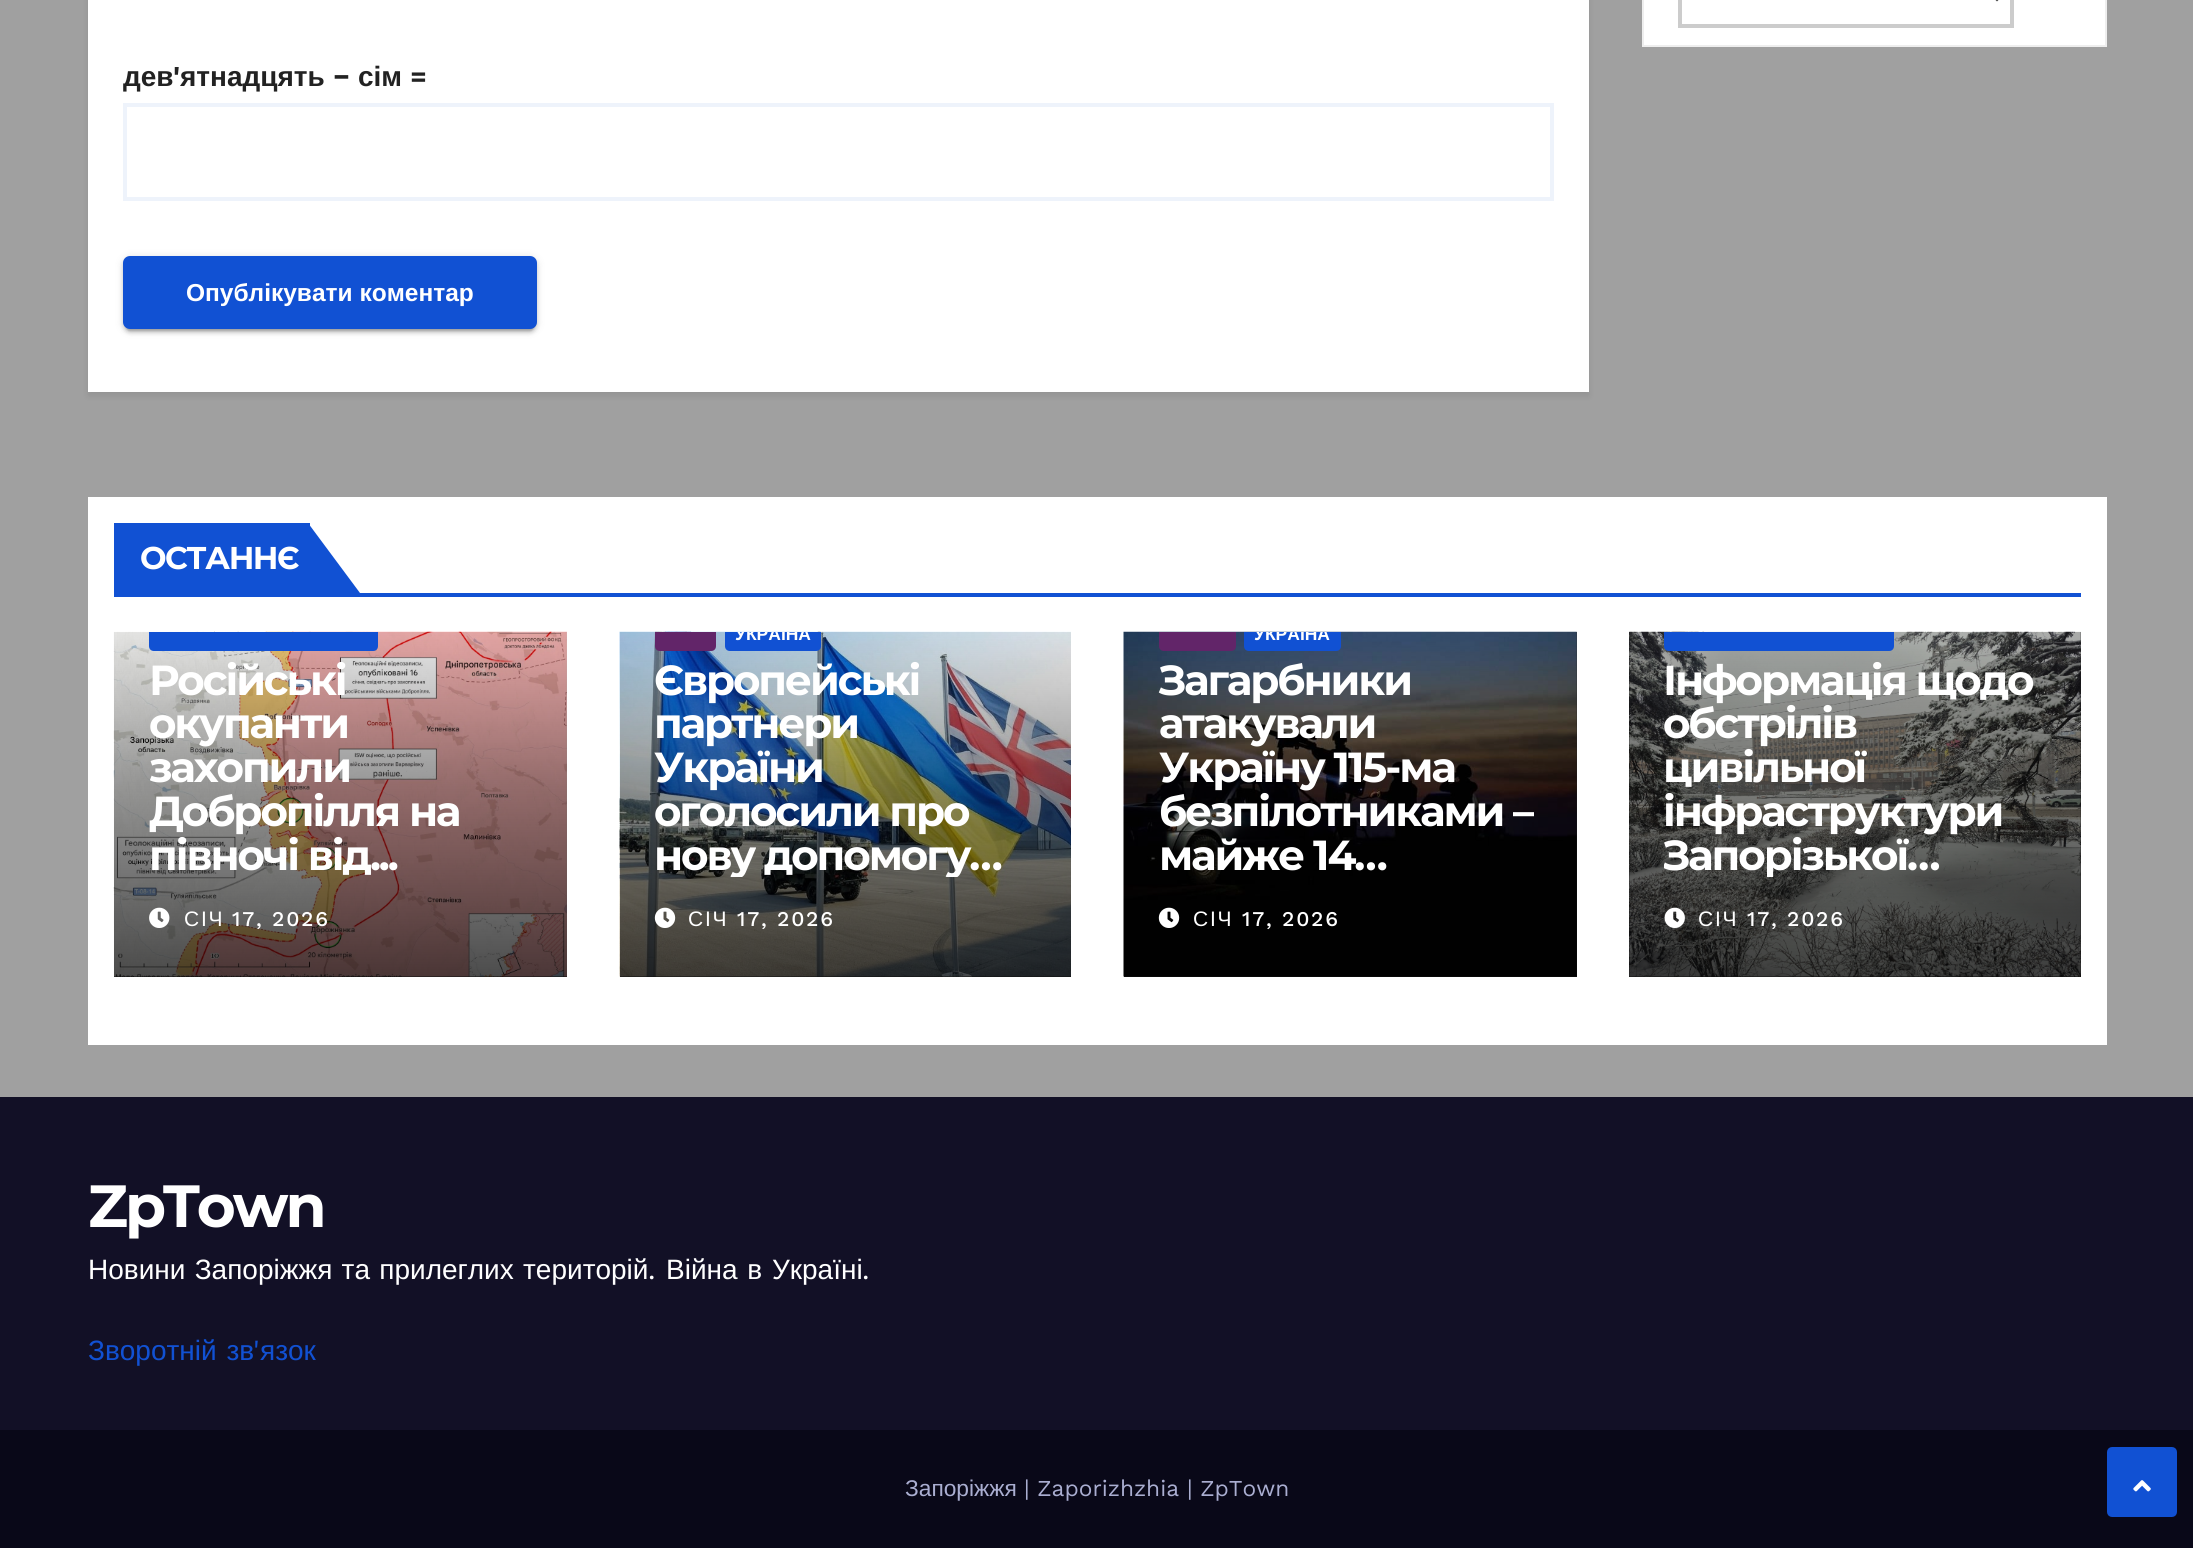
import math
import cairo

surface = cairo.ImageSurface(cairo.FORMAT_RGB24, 2193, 1548)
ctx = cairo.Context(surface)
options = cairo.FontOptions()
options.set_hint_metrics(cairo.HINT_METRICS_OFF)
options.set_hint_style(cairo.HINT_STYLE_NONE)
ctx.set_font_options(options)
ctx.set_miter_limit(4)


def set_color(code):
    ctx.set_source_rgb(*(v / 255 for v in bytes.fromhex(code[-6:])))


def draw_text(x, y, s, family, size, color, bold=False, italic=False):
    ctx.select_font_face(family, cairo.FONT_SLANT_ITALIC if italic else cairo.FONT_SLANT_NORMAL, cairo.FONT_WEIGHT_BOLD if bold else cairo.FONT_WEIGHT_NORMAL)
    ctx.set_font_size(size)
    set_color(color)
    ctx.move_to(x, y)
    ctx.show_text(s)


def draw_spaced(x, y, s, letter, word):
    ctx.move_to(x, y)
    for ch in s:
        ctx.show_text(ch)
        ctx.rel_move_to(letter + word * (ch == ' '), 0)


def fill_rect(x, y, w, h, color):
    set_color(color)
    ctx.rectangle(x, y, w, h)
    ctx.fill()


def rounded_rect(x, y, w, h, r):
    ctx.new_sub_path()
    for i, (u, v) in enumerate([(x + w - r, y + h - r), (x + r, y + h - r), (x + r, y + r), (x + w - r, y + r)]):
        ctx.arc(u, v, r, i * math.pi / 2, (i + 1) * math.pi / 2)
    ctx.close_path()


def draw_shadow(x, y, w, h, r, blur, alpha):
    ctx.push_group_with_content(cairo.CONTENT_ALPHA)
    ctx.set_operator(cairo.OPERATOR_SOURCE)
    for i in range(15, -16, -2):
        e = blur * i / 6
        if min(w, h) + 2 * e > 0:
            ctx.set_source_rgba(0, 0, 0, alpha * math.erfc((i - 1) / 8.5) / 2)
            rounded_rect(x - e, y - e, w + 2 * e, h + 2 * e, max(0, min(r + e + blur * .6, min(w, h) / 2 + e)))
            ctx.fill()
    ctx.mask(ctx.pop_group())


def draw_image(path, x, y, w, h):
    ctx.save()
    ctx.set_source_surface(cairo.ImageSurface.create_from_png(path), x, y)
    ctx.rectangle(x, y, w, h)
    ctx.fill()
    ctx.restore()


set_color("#a0a0a0")
ctx.paint()
set_color("#ffffff")
ctx.rectangle(1643, -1, 463, 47)
ctx.fill_preserve()
set_color("#eeeeee")
ctx.stroke()
ctx.rectangle(1680, -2, 332, 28)
set_color("#cccccc")
ctx.set_line_width(4)
ctx.stroke()
ctx.new_path()
ctx.move_to(1990, -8)
ctx.line_to(1997, -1)
ctx.line_to(2004, -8)
set_color("#444444")
ctx.set_line_width(3.5)
ctx.stroke()
set_color("#000000")
draw_shadow(88, -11, 1501, 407, 0, 3.5, 0.08)
fill_rect(88, 0, 1501, 392, "#ffffff")
draw_text(123, 86, "дев", "Liberation Sans", 28, "#222222", bold=True)
draw_text(173, 86, "'", "Work Sans", 28, "#222222", bold=True)
draw_text(180, 86, "ятнадцять", "Liberation Sans", 28, "#222222", bold=True)
draw_text(333, 86, "−", "Work Sans", 28, "#222222", bold=True)
draw_text(358, 86, "сім", "Liberation Sans", 28, "#222222", bold=True)
draw_text(410, 86, "=", "Work Sans", 28, "#222222", bold=True)
ctx.rectangle(125, 105, 1427, 94)
set_color("#eef3fb")
ctx.set_line_width(4)
ctx.stroke()
set_color("#000000")
draw_shadow(123, 257, 414, 74, 7, 4.5, 0.12)
draw_shadow(126, 264, 408, 67, 4, 1, 0.2)
draw_shadow(123, 259, 414, 74, 7, 2, 0.14)
set_color("#1151d3")
rounded_rect(124, 257, 412, 71, 6)
ctx.fill_preserve()
ctx.set_line_width(2)
ctx.stroke()
draw_text(186, 301, "Опублікувати коментар", "Liberation Sans", 24.5, "#ffffff", bold=True)
fill_rect(88, 497, 2019, 548, "#ffffff")
fill_rect(114, 593, 1967, 4, "#1151d3")
fill_rect(114, 523, 196, 70, "#1151d3")
ctx.select_font_face("Montserrat", cairo.FONT_SLANT_NORMAL, cairo.FONT_WEIGHT_BOLD)
ctx.set_font_size(31.5)
set_color("#ffffff")
draw_spaced(140, 569, "ОСТАННЄ", -1.5, 0)
set_color("#1151d3")
ctx.new_path()
ctx.move_to(308, 593)
ctx.line_to(308, 523)
ctx.line_to(360, 593)
ctx.close_path()
ctx.fill()
fill_rect(114, 976, 453, 1, "#333333")
draw_image("assets/img1.png", 113, 631, 454, 346)
gradient = cairo.LinearGradient(340, 588, 340, 977)
gradient.add_color_stop_rgba(0, 0, 0, 0, 0)
gradient.add_color_stop_rgba(0.5, 0, 0, 0, 0.4)
gradient.add_color_stop_rgba(1, 0, 0, 0, 0.7)
ctx.set_source(gradient)
ctx.rectangle(114, 632, 453, 345)
ctx.fill()
set_color("#1151d3")
ctx.new_path()
ctx.move_to(149, 632)
ctx.line_to(378, 632)
ctx.line_to(378, 646)
ctx.curve_to(378, 649, 376, 651, 373, 651)
ctx.line_to(154, 651)
ctx.curve_to(151, 651, 149, 649, 149, 646)
ctx.close_path()
ctx.fill()
ctx.set_font_size(42)
set_color("#ffffff")
draw_spaced(149, 695, "Російські", -2.1, 0)
draw_spaced(149, 738, "окупанти", -2.1, 0)
draw_spaced(149, 782, "захопили", -2.1, 0)
draw_spaced(149, 826, "Добропілля на", -2.1, 0)
draw_spaced(149, 870, "півночі від...", -2.1, 0)
draw_image("assets/img2.png", 149, 907, 21, 21)
ctx.select_font_face("Liberation Sans")
ctx.set_font_size(21)
draw_spaced(184, 926, "СІЧ", 1.75, 0)
ctx.select_font_face("Work Sans Medium")
draw_spaced(232, 926, "17, 2026", 1.75, 0)
fill_rect(620, 976, 451, 1, "#333333")
draw_image("assets/img3.png", 619, 631, 452, 346)
gradient = cairo.LinearGradient(845, 588, 845, 977)
gradient.add_color_stop_rgba(0, 0, 0, 0, 0)
gradient.add_color_stop_rgba(0.5, 0, 0, 0, 0.4)
gradient.add_color_stop_rgba(1, 0, 0, 0, 0.7)
ctx.set_source(gradient)
ctx.rectangle(620, 632, 451, 345)
ctx.fill()
set_color("#622569")
ctx.new_path()
ctx.move_to(655, 632)
ctx.line_to(716, 632)
ctx.line_to(716, 646)
ctx.curve_to(716, 649, 714, 651, 711, 651)
ctx.line_to(660, 651)
ctx.curve_to(657, 651, 655, 649, 655, 646)
ctx.close_path()
ctx.fill()
set_color("#1151d3")
ctx.new_path()
ctx.move_to(725, 632)
ctx.line_to(821, 632)
ctx.line_to(821, 646)
ctx.curve_to(821, 649, 819, 651, 816, 651)
ctx.line_to(730, 651)
ctx.curve_to(727, 651, 725, 649, 725, 646)
ctx.close_path()
ctx.fill()
ctx.save()
ctx.rectangle(620, 632, 451, 345)
ctx.clip()
draw_text(735, 640, "УКРАЇНА", "Liberation Sans", 17.5, "#ffffff", bold=True)
ctx.restore()
ctx.select_font_face("Montserrat", cairo.FONT_SLANT_NORMAL, cairo.FONT_WEIGHT_BOLD)
ctx.set_font_size(42)
set_color("#ffffff")
draw_spaced(654, 695, "Європейські", -2.1, 0)
draw_spaced(654, 738, "партнери", -2.1, 0)
draw_spaced(654, 782, "України", -2.1, 0)
draw_spaced(654, 826, "оголосили про", -2.1, 0)
ctx.save()
ctx.rectangle(655, 658, 381, 219)
ctx.clip()
draw_spaced(654, 870, "нову допомогу…", -2.1, 0)
ctx.restore()
draw_image("assets/img4.png", 654, 907, 22, 21)
ctx.select_font_face("Liberation Sans")
ctx.set_font_size(21)
draw_spaced(688, 926, "СІЧ", 1.75, 0)
ctx.select_font_face("Work Sans Medium")
draw_spaced(737, 926, "17, 2026", 1.75, 0)
fill_rect(1124, 632, 453, 345, "#333333")
draw_image("assets/img5.png", 1123, 631, 454, 346)
gradient = cairo.LinearGradient(1350, 588, 1350, 977)
gradient.add_color_stop_rgba(0, 0, 0, 0, 0)
gradient.add_color_stop_rgba(0.5, 0, 0, 0, 0.4)
gradient.add_color_stop_rgba(1, 0, 0, 0, 0.7)
ctx.set_source(gradient)
ctx.rectangle(1124, 632, 453, 345)
ctx.fill()
set_color("#622569")
ctx.new_path()
ctx.move_to(1159, 632)
ctx.line_to(1236, 632)
ctx.line_to(1236, 646)
ctx.curve_to(1236, 649, 1234, 651, 1231, 651)
ctx.line_to(1164, 651)
ctx.curve_to(1161, 651, 1159, 649, 1159, 646)
ctx.close_path()
ctx.fill()
set_color("#1151d3")
ctx.new_path()
ctx.move_to(1244, 632)
ctx.line_to(1341, 632)
ctx.line_to(1341, 646)
ctx.curve_to(1341, 649, 1339, 651, 1336, 651)
ctx.line_to(1249, 651)
ctx.curve_to(1246, 651, 1244, 649, 1244, 646)
ctx.close_path()
ctx.fill()
ctx.save()
ctx.rectangle(1124, 632, 453, 345)
ctx.clip()
draw_text(1254, 640, "УКРАЇНА", "Liberation Sans", 17.5, "#ffffff", bold=True)
ctx.restore()
ctx.select_font_face("Montserrat", cairo.FONT_SLANT_NORMAL, cairo.FONT_WEIGHT_BOLD)
ctx.set_font_size(42)
set_color("#ffffff")
draw_spaced(1159, 695, "Загарбники", -2.1, 0)
draw_spaced(1159, 738, "атакували", -2.1, 0)
draw_spaced(1159, 782, "Україну 115-ма", -2.1, 0)
draw_spaced(1159, 826, "безпілотниками –", -2.1, 0)
draw_spaced(1159, 870, "майже 14…", -2.1, 0)
draw_image("assets/img6.png", 1158, 907, 22, 21)
ctx.select_font_face("Liberation Sans")
ctx.set_font_size(21)
draw_spaced(1193, 926, "СІЧ", 1.75, 0)
ctx.select_font_face("Work Sans Medium")
draw_spaced(1242, 926, "17, 2026", 1.75, 0)
fill_rect(1629, 632, 452, 345, "#333333")
draw_image("assets/img7.png", 1629, 631, 452, 346)
gradient = cairo.LinearGradient(1855, 483, 1855, 977)
gradient.add_color_stop_rgba(0, 0, 0, 0, 0)
gradient.add_color_stop_rgba(0.5, 0, 0, 0, 0.4)
gradient.add_color_stop_rgba(1, 0, 0, 0, 0.7)
ctx.set_source(gradient)
ctx.rectangle(1629, 632, 452, 345)
ctx.fill()
set_color("#1151d3")
ctx.new_path()
ctx.move_to(1664, 632)
ctx.line_to(1894, 632)
ctx.line_to(1894, 646)
ctx.curve_to(1894, 649, 1892, 651, 1889, 651)
ctx.line_to(1669, 651)
ctx.curve_to(1666, 651, 1664, 649, 1664, 646)
ctx.close_path()
ctx.fill()
ctx.select_font_face("Montserrat", cairo.FONT_SLANT_NORMAL, cairo.FONT_WEIGHT_BOLD)
ctx.set_font_size(42)
set_color("#ffffff")
draw_spaced(1663, 695, "Інформація щодо", -2.1, 0)
draw_spaced(1663, 738, "обстрілів", -2.1, 0)
draw_spaced(1663, 782, "цивільної", -2.1, 0)
draw_spaced(1663, 826, "інфраструктури", -2.1, 0)
ctx.save()
ctx.rectangle(1664, 658, 382, 219)
ctx.clip()
draw_spaced(1663, 870, "Запорізької…", -2.1, 0)
ctx.restore()
draw_image("assets/img8.png", 1664, 907, 21, 21)
ctx.select_font_face("Liberation Sans")
ctx.set_font_size(21)
draw_spaced(1698, 926, "СІЧ", 1.75, 0)
ctx.select_font_face("Work Sans Medium")
draw_spaced(1747, 926, "17, 2026", 1.75, 0)
fill_rect(0, 1097, 2193, 333, "#121026")
ctx.select_font_face("Montserrat", cairo.FONT_SLANT_NORMAL, cairo.FONT_WEIGHT_BOLD)
ctx.set_font_size(59.5)
set_color("#ffffff")
draw_spaced(88, 1227, "ZpTown", -3, 0)
ctx.select_font_face("Liberation Sans")
ctx.set_font_size(28)
draw_spaced(88, 1279, "Новини Запоріжжя та прилеглих територій", 0, 1.5)
draw_text(648, 1279, ".", "Work Sans", 28, "#ffffff")
ctx.select_font_face("Liberation Sans")
draw_spaced(666, 1279, "Війна в Україні", 0, 2)
draw_text(862, 1279, ".", "Work Sans", 28, "#ffffff")
ctx.select_font_face("Liberation Sans")
set_color("#1151d3")
draw_spaced(88, 1360, "Зворотній зв", 0, 2)
draw_text(253, 1360, "'", "Work Sans", 28, "#1151d3")
draw_text(260, 1360, "язок", "Liberation Sans", 28, "#1151d3")
fill_rect(0, 1430, 2193, 118, "#090818")
draw_text(905, 1496, "Запоріжжя", "Liberation Sans", 22.75, "#aaaed1")
draw_text(1024, 1496, "| Zaporizhzhia | ZpTown", "Work Sans", 22.75, "#aaaed1")
set_color("#1151d3")
rounded_rect(2109, 1449, 66, 66, 3)
ctx.fill_preserve()
ctx.set_line_width(4)
ctx.stroke()
draw_image("assets/img9.png", 2133, 1480, 18, 12)
surface.write_to_png("output.png")
